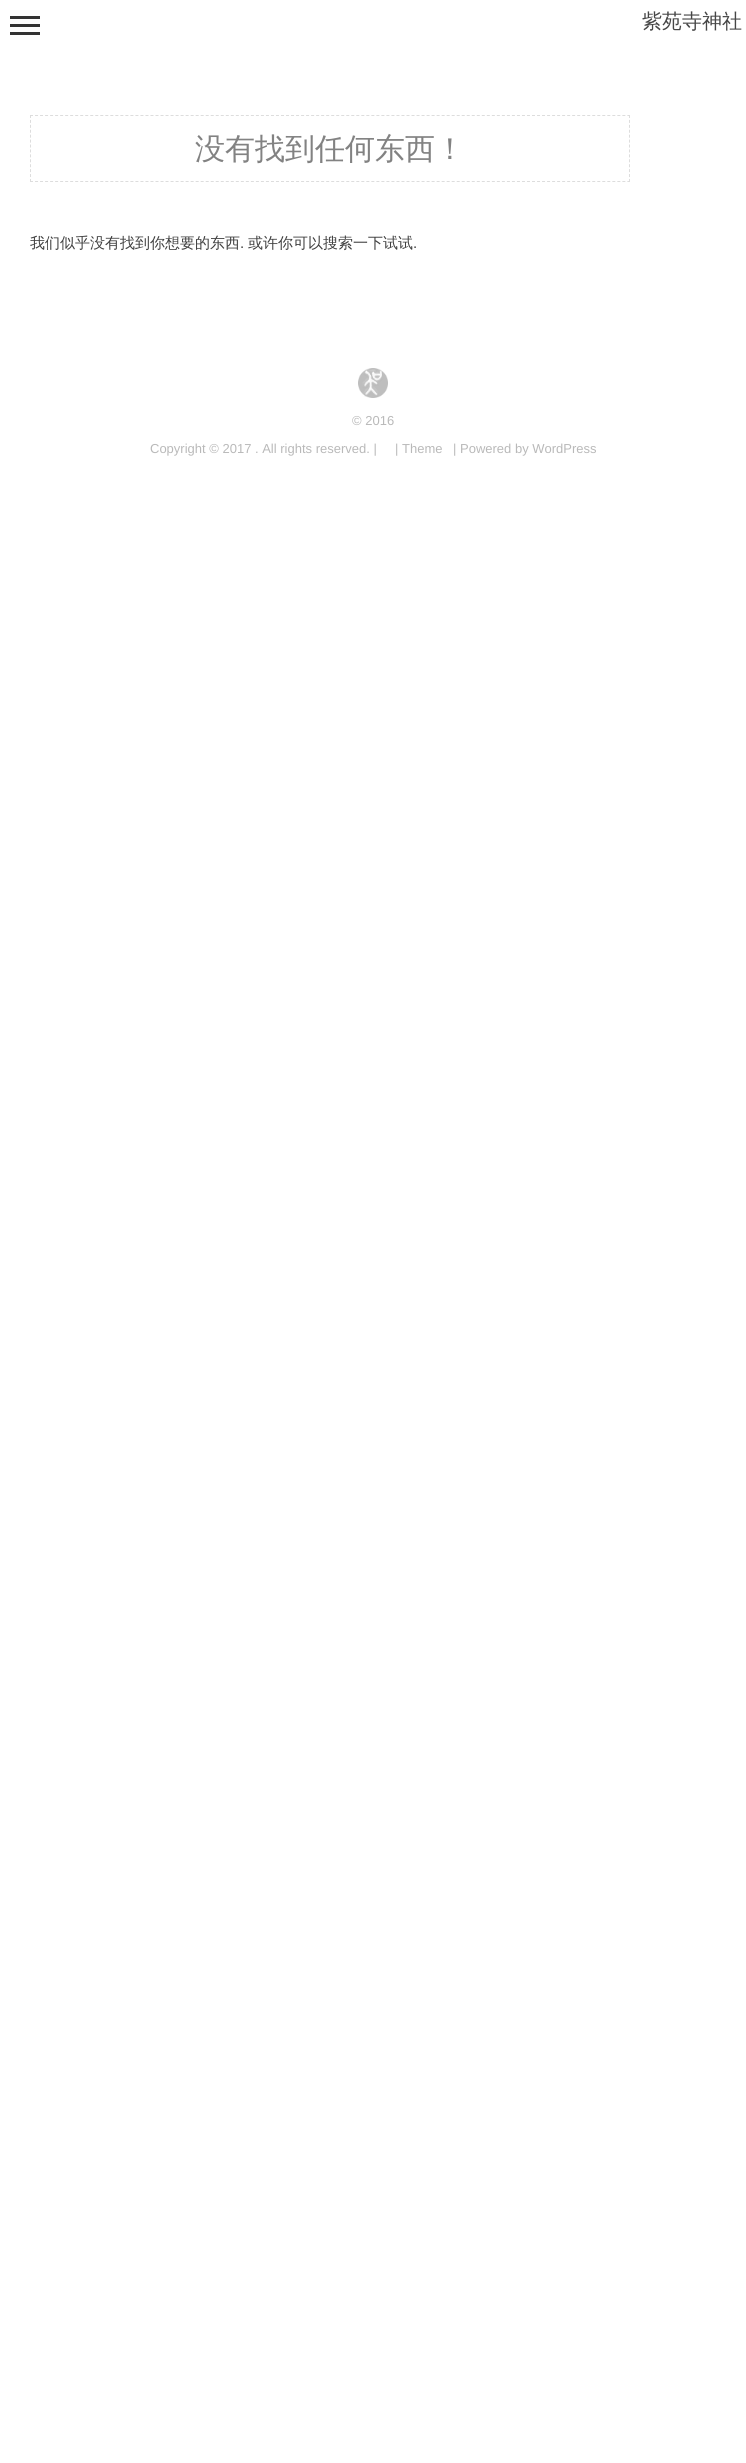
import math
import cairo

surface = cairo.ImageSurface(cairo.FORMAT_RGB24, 746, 2463)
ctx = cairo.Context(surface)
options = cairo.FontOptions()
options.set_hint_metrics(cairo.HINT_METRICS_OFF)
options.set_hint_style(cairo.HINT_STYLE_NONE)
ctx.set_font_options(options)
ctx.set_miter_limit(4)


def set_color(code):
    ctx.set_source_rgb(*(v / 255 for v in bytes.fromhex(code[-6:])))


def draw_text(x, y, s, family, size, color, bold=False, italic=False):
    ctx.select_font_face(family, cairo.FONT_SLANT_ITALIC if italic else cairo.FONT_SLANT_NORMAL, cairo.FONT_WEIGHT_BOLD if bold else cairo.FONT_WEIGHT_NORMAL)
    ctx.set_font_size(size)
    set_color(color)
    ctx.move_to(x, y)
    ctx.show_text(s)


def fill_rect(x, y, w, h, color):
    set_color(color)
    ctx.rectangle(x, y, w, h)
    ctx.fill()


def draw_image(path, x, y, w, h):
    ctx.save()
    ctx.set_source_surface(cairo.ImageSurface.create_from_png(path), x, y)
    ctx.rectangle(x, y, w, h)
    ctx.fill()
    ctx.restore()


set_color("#ffffff")
ctx.paint()
fill_rect(10, 24, 30, 3, "#333333")
fill_rect(10, 16, 30, 3, "#333333")
fill_rect(10, 32, 30, 3, "#333333")
draw_text(642, 28, "紫苑寺神社", "WenQuanYi Zen Hei Medium", 20, "#464646")
ctx.new_path()
ctx.move_to(30, 115.5)
ctx.line_to(630, 115.5)
set_color("#dddddd")
ctx.set_line_width(1)
ctx.set_dash([3, 2.02])
ctx.stroke()
ctx.new_path()
ctx.move_to(629.5, 115)
ctx.line_to(629.5, 182)
ctx.set_dash([3, 1.92])
ctx.stroke()
ctx.new_path()
ctx.move_to(30, 181.5)
ctx.line_to(630, 181.5)
ctx.set_dash([3, 2.02])
ctx.stroke()
ctx.new_path()
ctx.move_to(30.5, 115)
ctx.line_to(30.5, 182)
ctx.set_dash([3, 1.92])
ctx.stroke()
draw_text(195, 159, "没有找到任何东西！", "WenQuanYi Zen Hei Medium", 30, "#828282")
draw_text(30, 248, "我们似乎没有找到你想要的东西", "WenQuanYi Zen Hei Medium", 15, "#404040")
draw_text(240, 248, ".", "Liberation Sans", 15, "#404040")
draw_text(248, 248, "或许你可以搜索一下试试", "WenQuanYi Zen Hei Medium", 15, "#404040")
draw_text(413, 248, ".", "Liberation Sans", 15, "#404040")
draw_image("assets/img1.png", 358, 368, 30, 30)
draw_text(352, 425, "© 2016", "Liberation Sans", 13, "#b9b9b9")
draw_text(150, 453, "Copyright © 2017 . All rights reserved. |", "Liberation Sans", 13, "#b9b9b9")
draw_text(395, 453, "| Theme", "Liberation Sans", 13, "#b9b9b9")
draw_text(453, 453, "| Powered by WordPress", "Liberation Sans", 13, "#b9b9b9")
surface.write_to_png("output.png")
